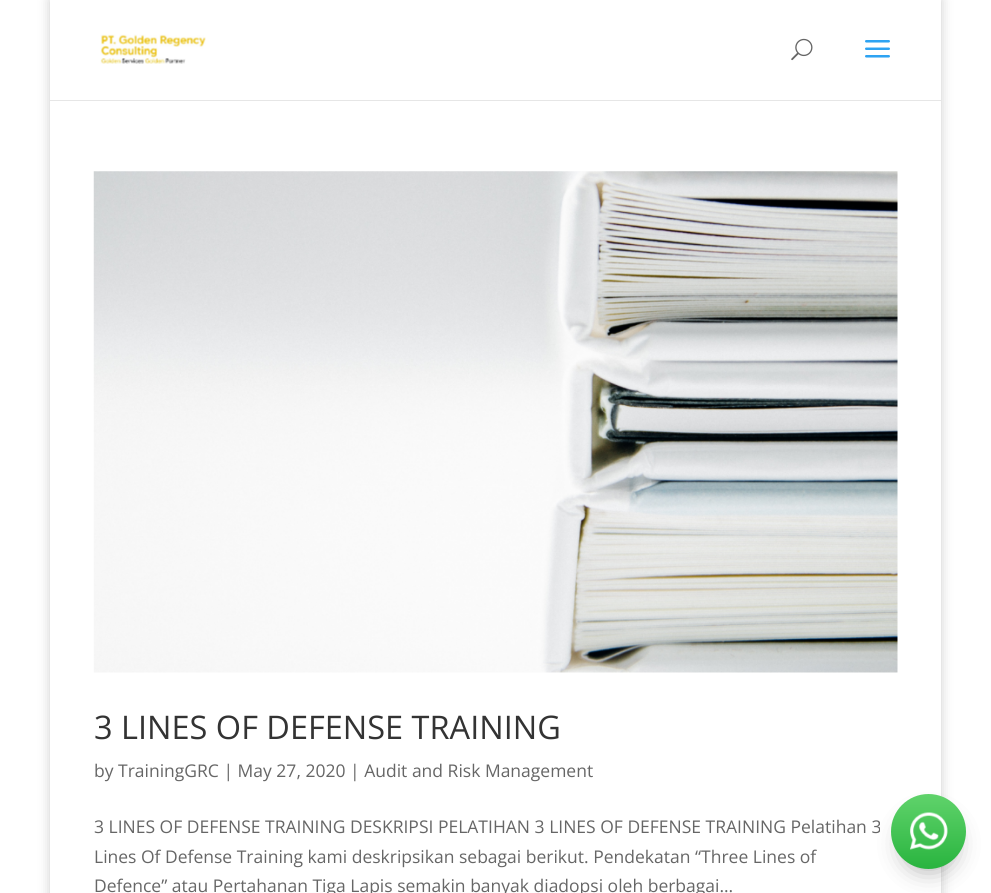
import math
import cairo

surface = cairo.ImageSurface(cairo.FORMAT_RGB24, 991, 893)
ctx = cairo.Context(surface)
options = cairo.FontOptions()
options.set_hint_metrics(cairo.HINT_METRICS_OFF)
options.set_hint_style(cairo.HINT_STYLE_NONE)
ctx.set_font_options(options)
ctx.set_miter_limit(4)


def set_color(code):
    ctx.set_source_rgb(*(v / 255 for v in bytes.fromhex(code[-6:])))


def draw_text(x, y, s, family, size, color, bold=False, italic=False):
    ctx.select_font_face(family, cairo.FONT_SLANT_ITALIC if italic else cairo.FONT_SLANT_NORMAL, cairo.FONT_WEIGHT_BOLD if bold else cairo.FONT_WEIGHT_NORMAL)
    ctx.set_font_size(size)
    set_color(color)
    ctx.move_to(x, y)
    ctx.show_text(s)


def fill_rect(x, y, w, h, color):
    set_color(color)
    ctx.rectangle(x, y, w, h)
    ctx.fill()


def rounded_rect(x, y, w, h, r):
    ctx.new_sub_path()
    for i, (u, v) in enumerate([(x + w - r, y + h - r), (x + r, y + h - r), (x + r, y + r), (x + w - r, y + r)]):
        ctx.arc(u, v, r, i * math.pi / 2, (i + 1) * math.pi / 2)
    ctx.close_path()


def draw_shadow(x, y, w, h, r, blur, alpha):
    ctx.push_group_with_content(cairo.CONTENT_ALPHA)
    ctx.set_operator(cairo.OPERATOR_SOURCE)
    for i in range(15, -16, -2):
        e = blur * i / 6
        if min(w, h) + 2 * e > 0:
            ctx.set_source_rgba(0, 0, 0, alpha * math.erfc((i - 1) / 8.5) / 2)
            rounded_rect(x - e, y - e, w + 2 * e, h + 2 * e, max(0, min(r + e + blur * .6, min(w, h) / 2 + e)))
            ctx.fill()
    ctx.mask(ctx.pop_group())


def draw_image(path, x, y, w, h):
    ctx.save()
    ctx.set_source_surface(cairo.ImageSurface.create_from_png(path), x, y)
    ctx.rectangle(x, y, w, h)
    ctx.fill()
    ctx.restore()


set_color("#ffffff")
ctx.paint()
ctx.save()
ctx.set_fill_rule(cairo.FILL_RULE_EVEN_ODD)
ctx.new_path()
ctx.move_to(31, 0)
ctx.line_to(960, 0)
ctx.line_to(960, 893)
ctx.line_to(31, 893)
ctx.close_path()
ctx.move_to(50, 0)
ctx.line_to(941, 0)
ctx.line_to(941, 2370)
ctx.line_to(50, 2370)
ctx.close_path()
ctx.clip()
set_color("#000000")
draw_shadow(50, 0, 891, 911, 0, 6, 0.2)
ctx.restore()
fill_rect(50, 100, 891, 1, "#e6e6e6")
draw_image("assets/img1.png", 100, 34, 106, 30)
draw_image("assets/img2.png", 791, 38, 22, 23)
draw_image("assets/img3.png", 865, 40, 25, 18)
draw_image("assets/img4.png", 93, 171, 805, 502)
draw_text(94, 739, "3 LINES OF DEFENSE TRAINING", "Open Sans", 32.5, "#333333")
draw_text(94, 777, "by TrainingGRC | May 27, 2020 | Audit and Risk Management", "Open Sans", 17.5, "#666666")
draw_text(94, 833, "3 LINES OF DEFENSE TRAINING DESKRIPSI PELATIHAN 3 LINES OF DEFENSE TRAINING Pelatihan 3", "Open Sans", 17.5, "#666666")
draw_text(94, 863, "Lines Of Defense Training kami deskripsikan sebagai berikut. Pendekatan “Three Lines of", "Open Sans", 17.5, "#666666")
draw_text(94, 892, "Defence” atau Pertahanan Tiga Lapis semakin banyak diadopsi oleh berbagai...", "Open Sans", 17.5, "#666666")
set_color("#000000")
draw_shadow(904, 819, 50, 50, 25, 12.5, 0.35)
gradient = cairo.LinearGradient(929, 869, 929, 794)
gradient.add_color_stop_rgba(0, 0.161, 0.706, 0.247, 1)
gradient.add_color_stop_rgba(1, 0.376, 0.827, 0.42, 1)
ctx.set_source(gradient)
ctx.arc(928.5, 831.5, 37.5, 0, 2 * math.pi)
ctx.fill()
draw_image("assets/img5.png", 910, 812, 38, 38)
surface.write_to_png("output.png")
